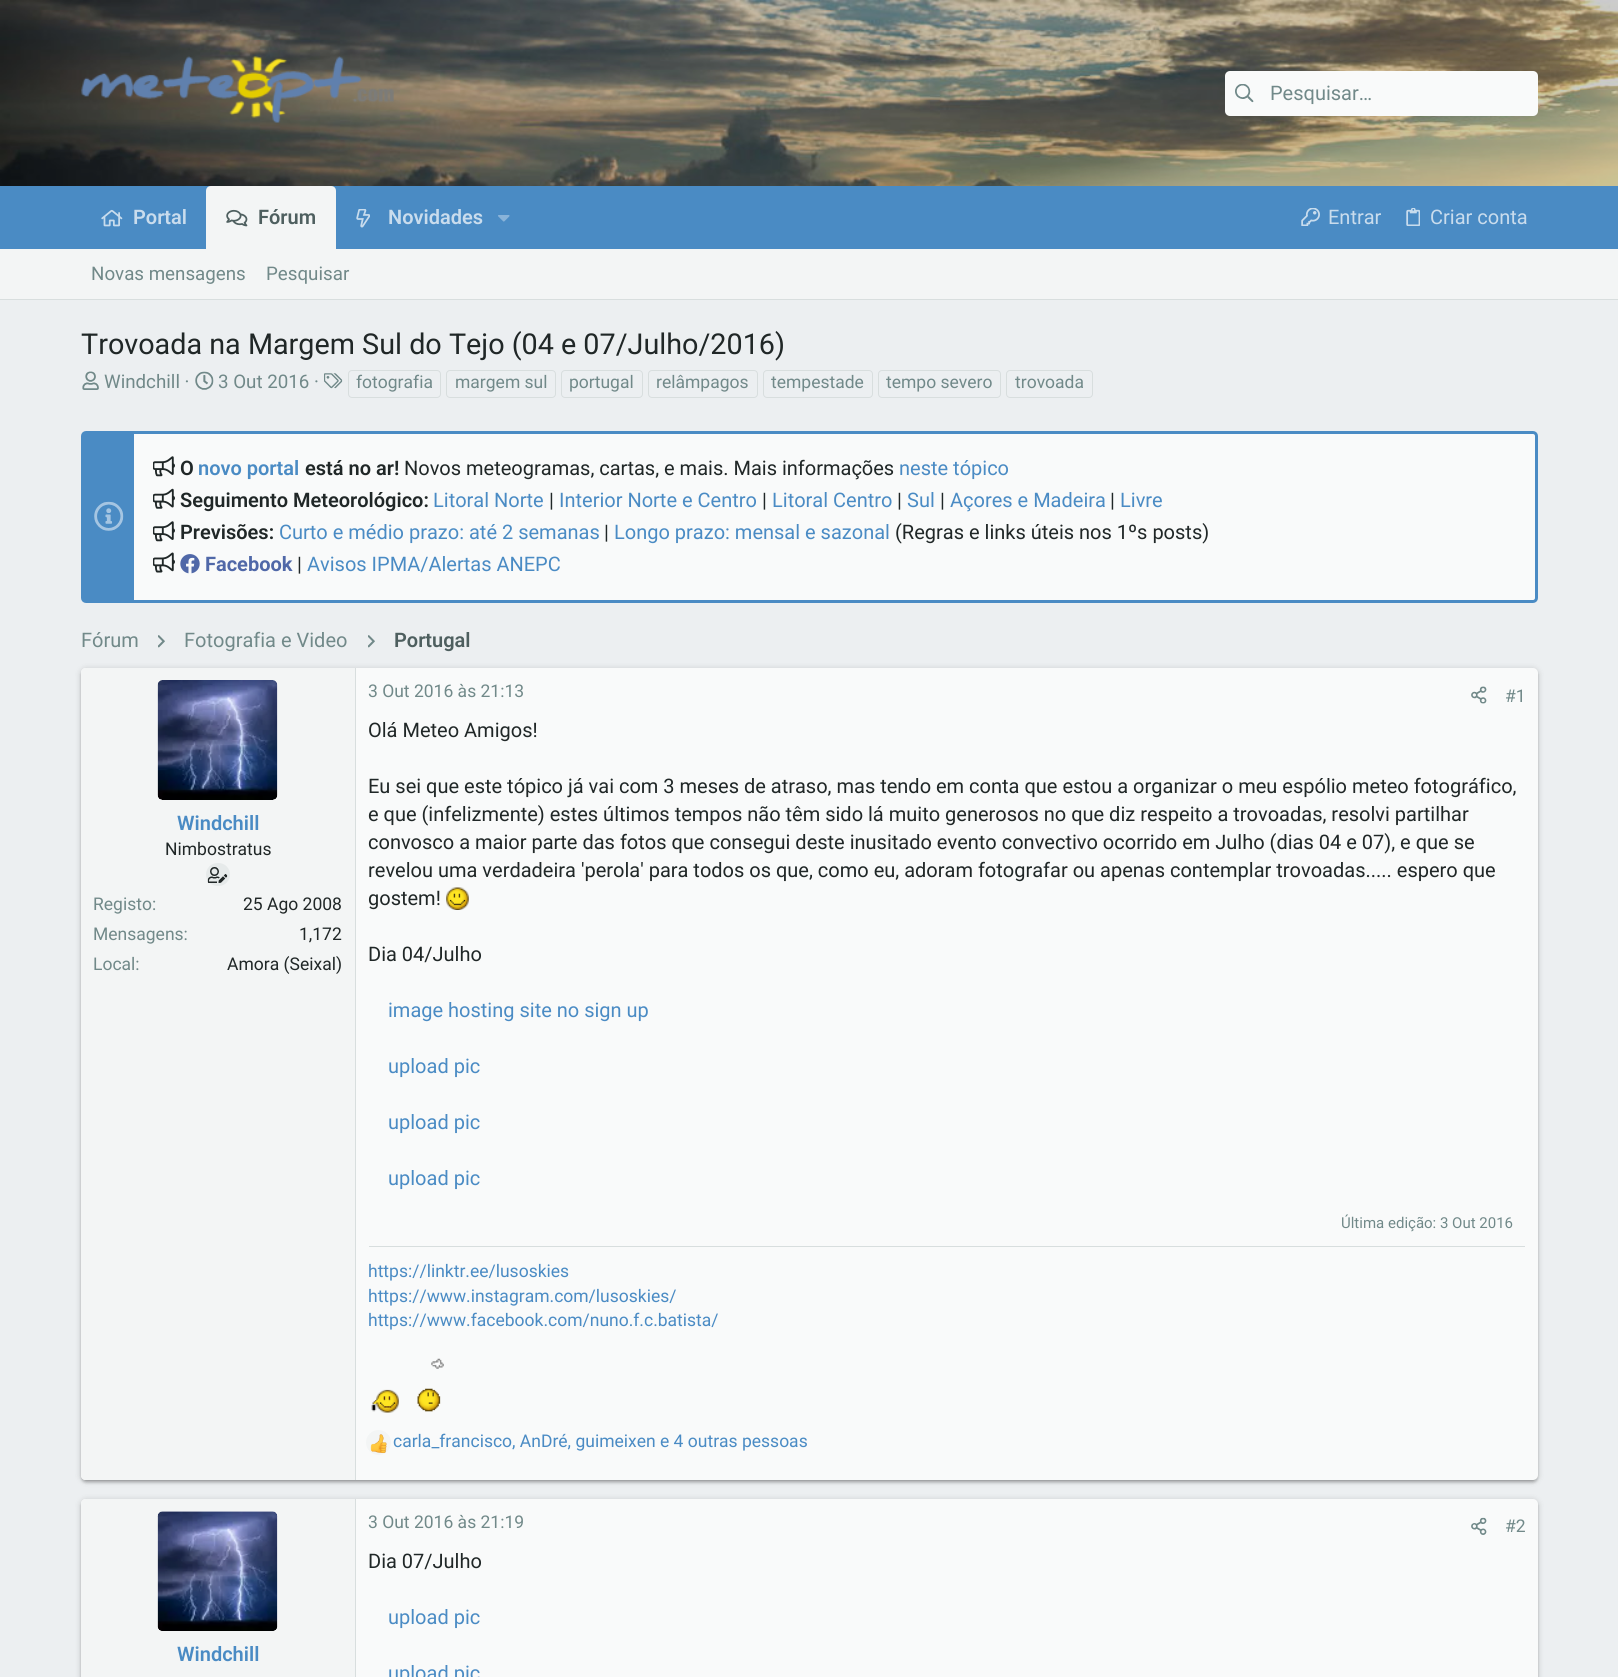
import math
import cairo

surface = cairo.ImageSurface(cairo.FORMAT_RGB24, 1618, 1677)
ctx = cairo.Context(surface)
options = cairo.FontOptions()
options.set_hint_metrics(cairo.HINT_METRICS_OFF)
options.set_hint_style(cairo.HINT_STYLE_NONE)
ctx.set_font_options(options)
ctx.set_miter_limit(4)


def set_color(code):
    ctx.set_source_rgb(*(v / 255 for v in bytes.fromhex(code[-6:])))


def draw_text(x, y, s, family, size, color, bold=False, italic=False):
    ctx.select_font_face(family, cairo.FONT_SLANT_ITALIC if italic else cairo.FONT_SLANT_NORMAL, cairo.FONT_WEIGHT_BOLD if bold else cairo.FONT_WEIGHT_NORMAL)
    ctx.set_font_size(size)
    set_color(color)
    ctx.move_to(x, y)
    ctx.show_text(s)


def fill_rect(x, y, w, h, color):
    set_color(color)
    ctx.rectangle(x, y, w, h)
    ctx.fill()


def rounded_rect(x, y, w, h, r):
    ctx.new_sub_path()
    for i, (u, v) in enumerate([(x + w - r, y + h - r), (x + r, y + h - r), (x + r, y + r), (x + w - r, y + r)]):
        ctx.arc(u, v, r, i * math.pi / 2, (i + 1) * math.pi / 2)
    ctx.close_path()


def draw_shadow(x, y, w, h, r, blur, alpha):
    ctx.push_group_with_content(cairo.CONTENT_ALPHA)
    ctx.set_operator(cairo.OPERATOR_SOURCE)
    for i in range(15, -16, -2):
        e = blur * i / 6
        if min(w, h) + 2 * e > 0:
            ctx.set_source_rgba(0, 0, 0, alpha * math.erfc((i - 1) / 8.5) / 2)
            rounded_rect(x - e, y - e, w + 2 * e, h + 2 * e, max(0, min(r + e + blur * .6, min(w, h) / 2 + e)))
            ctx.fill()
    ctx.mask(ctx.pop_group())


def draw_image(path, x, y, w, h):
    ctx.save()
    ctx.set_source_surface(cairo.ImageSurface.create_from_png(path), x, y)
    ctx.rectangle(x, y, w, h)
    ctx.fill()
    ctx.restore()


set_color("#eceff1")
ctx.paint()
draw_image("assets/img1.png", 0, 0, 1618, 186)
draw_image("assets/img2.png", 81, 56, 313, 67)
set_color("#f9fafa")
rounded_rect(1225, 71, 313, 45, 5)
ctx.fill()
draw_image("assets/img3.png", 1235, 84, 19, 19)
draw_text(1270, 100, "Pesquisar…", "Roboto", 20, "#718989")
fill_rect(0, 186, 1618, 63, "#4a8bc4")
draw_image("assets/img4.png", 101, 209, 22, 18)
draw_text(133, 224, "Portal", "Roboto SemiBold", 20, "#c9dced")
set_color("#f3f5f5")
ctx.new_path()
ctx.move_to(211, 186)
ctx.line_to(331, 186)
ctx.curve_to(334, 186, 336, 188, 336, 191)
ctx.line_to(336, 249)
ctx.line_to(206, 249)
ctx.line_to(206, 191)
ctx.curve_to(206, 188, 208, 186, 211, 186)
ctx.close_path()
ctx.fill()
draw_image("assets/img5.png", 226, 209, 22, 18)
draw_text(258, 224, "Fórum", "Roboto SemiBold", 20, "#4e5f5f")
draw_image("assets/img6.png", 356, 209, 14, 19)
draw_text(388, 224, "Novidades", "Roboto SemiBold", 20, "#c9dced")
draw_image("assets/img7.png", 498, 215, 12, 7)
draw_image("assets/img8.png", 1301, 208, 19, 18)
draw_text(1328, 224, "Entrar", "Roboto", 20, "#c9dced")
draw_image("assets/img9.png", 1406, 208, 14, 18)
draw_text(1430, 224, "Criar conta", "Roboto", 20, "#c9dced")
fill_rect(0, 249, 1618, 50, "#f3f5f5")
fill_rect(0, 299, 1618, 1, "#d8dede")
draw_text(91, 280, "Novas mensagens", "Roboto", 18.75, "#718989")
draw_text(266, 280, "Pesquisar", "Roboto", 18.75, "#718989")
draw_text(81, 354, "Trovoada na Margem Sul do Tejo (04 e 07/Julho/2016)", "Roboto", 28.75, "#202727")
draw_image("assets/img10.png", 82, 371, 17, 19)
draw_text(104, 388, "Windchill ·", "Roboto", 18.75, "#718989")
draw_image("assets/img11.png", 195, 371, 19, 19)
draw_text(218, 388, "3 Out 2016 ·", "Roboto", 18.75, "#718989")
draw_image("assets/img12.png", 324, 373, 19, 16)
rounded_rect(348.5, 370.5, 92, 27, 3.5)
set_color("#d8dede")
ctx.set_line_width(1)
ctx.stroke()
draw_text(356, 388, "fotografia", "Roboto", 17.5, "#718989")
rounded_rect(446.5, 370.5, 109, 27, 3.5)
set_color("#d8dede")
ctx.stroke()
draw_text(455, 388, "margem sul", "Roboto", 17.5, "#718989")
rounded_rect(561.5, 370.5, 81, 27, 3.5)
set_color("#d8dede")
ctx.stroke()
draw_text(569, 388, "portugal", "Roboto", 17.5, "#718989")
rounded_rect(648.5, 370.5, 109, 27, 3.5)
set_color("#d8dede")
ctx.stroke()
draw_text(656, 388, "relâmpagos", "Roboto", 17.5, "#718989")
rounded_rect(763.5, 370.5, 109, 27, 3.5)
set_color("#d8dede")
ctx.stroke()
draw_text(771, 388, "tempestade", "Roboto", 17.5, "#718989")
rounded_rect(878.5, 370.5, 122, 27, 3.5)
set_color("#d8dede")
ctx.stroke()
draw_text(886, 388, "tempo severo", "Roboto", 17.5, "#718989")
rounded_rect(1006.5, 370.5, 86, 27, 3.5)
set_color("#d8dede")
ctx.stroke()
draw_text(1015, 388, "trovoada", "Roboto", 17.5, "#718989")
set_color("#f9fafa")
rounded_rect(82.5, 432.5, 1454, 169, 3.5)
ctx.fill_preserve()
set_color("#4a8bc4")
ctx.set_line_width(3)
ctx.stroke()
fill_rect(84, 434, 50, 166, "#4a8bc4")
draw_image("assets/img13.png", 94, 501, 30, 30)
draw_image("assets/img14.png", 153, 456, 22, 21)
draw_text(180, 475, "O", "Roboto SemiBold", 20, "#202727")
draw_text(198, 475, "novo portal", "Roboto SemiBold", 20, "#4a8bc4")
draw_text(305, 475, "está no ar!", "Roboto SemiBold", 20, "#202727")
draw_text(404, 475, "Novos meteogramas, cartas, e mais. Mais informações", "Roboto", 20, "#202727")
draw_text(899, 475, "neste tópico", "Roboto", 20, "#4a8bc4")
draw_image("assets/img15.png", 153, 488, 22, 21)
draw_text(180, 507, "Seguimento Meteorológico:", "Roboto SemiBold", 20, "#202727")
draw_text(433, 507, "Litoral Norte", "Roboto", 20, "#4a8bc4")
draw_text(549, 507, "|", "Roboto", 20, "#202727")
draw_text(559, 507, "Interior Norte e Centro", "Roboto", 20, "#4a8bc4")
draw_text(762, 507, "|", "Roboto", 20, "#202727")
draw_text(772, 507, "Litoral Centro", "Roboto", 20, "#4a8bc4")
draw_text(897, 507, "|", "Roboto", 20, "#202727")
draw_text(907, 507, "Sul", "Roboto", 20, "#4a8bc4")
draw_text(940, 507, "|", "Roboto", 20, "#202727")
draw_text(950, 507, "Açores e Madeira", "Roboto", 20, "#4a8bc4")
draw_text(1110, 507, "|", "Roboto", 20, "#202727")
draw_text(1120, 507, "Livre", "Roboto", 20, "#4a8bc4")
draw_image("assets/img14.png", 153, 521, 22, 21)
draw_text(180, 539, "Previsões:", "Roboto SemiBold", 20, "#202727")
draw_text(279, 539, "Curto e médio prazo: até 2 semanas", "Roboto", 20, "#4a8bc4")
draw_text(604, 539, "|", "Roboto", 20, "#202727")
draw_text(614, 539, "Longo prazo: mensal e sazonal", "Roboto", 20, "#4a8bc4")
draw_text(895, 539, "(Regras e links úteis nos 1ºs posts)", "Roboto", 20, "#202727")
draw_image("assets/img16.png", 153, 552, 22, 21)
draw_image("assets/img17.png", 180, 554, 20, 20)
draw_text(205, 571, "Facebook", "Roboto", 20, "#5068a8", bold=True)
draw_text(297, 571, "|", "Roboto", 20, "#202727")
draw_text(307, 571, "Avisos IPMA/Alertas ANEPC", "Roboto", 20, "#4a8bc4")
draw_text(81, 647, "Fórum", "Roboto", 20, "#718989")
draw_image("assets/img18.png", 158, 635, 7, 13)
draw_text(184, 647, "Fotografia e Video", "Roboto", 20, "#718989")
draw_image("assets/img18.png", 368, 635, 7, 13)
draw_text(394, 647, "Portugal", "Roboto SemiBold", 20, "#4e5f5f")
set_color("#000000")
draw_shadow(81, 669, 1457, 812, 5, 3, 0.2)
draw_shadow(84, 674, 1451, 807, 2.5, 0.5, 0.12)
draw_shadow(81, 670, 1457, 813, 5, 1, 0.14)
set_color("#f9fafa")
rounded_rect(81, 668, 1457, 812, 5)
ctx.fill()
set_color("#f3f5f5")
ctx.new_path()
ctx.move_to(85, 668)
ctx.line_to(356, 668)
ctx.line_to(356, 1480)
ctx.line_to(85, 1480)
ctx.curve_to(83, 1480, 81, 1478, 81, 1476)
ctx.line_to(81, 672)
ctx.curve_to(81, 670, 83, 668, 85, 668)
ctx.close_path()
ctx.fill()
fill_rect(355, 668, 1, 812, "#d8dede")
set_color("#f9fafa")
rounded_rect(158, 680, 120, 120, 5)
ctx.fill()
draw_image("assets/img19.png", 157, 680, 121, 120)
draw_text(177, 830, "Windchill", "Roboto SemiBold", 20, "#4a8bc4")
draw_text(165, 855, "Nimbostratus", "Roboto", 17.5, "#202727")
set_color("#e6eaea")
rounded_rect(206, 863, 24, 23, 11.5)
ctx.fill()
draw_image("assets/img20.png", 207, 867, 21, 16)
draw_text(93, 910, "Registo:", "Roboto", 17.5, "#718989")
draw_text(243, 910, "25 Ago 2008", "Roboto", 17.5, "#202727")
draw_text(93, 940, "Mensagens:", "Roboto", 17.5, "#718989")
draw_text(299, 940, "1,172", "Roboto", 17.5, "#202727")
draw_text(93, 970, "Local:", "Roboto", 17.5, "#718989")
draw_text(227, 970, "Amora (Seixal)", "Roboto", 17.5, "#202727")
draw_text(368, 697, "3 Out 2016 às 21:13", "Roboto", 17.5, "#718989")
draw_image("assets/img21.png", 1471, 686, 16, 18)
draw_text(1505, 702, "#1", "Roboto", 17.5, "#718989")
draw_text(368, 737, "Olá Meteo Amigos!", "Roboto", 20, "#202727")
draw_text(368, 793, "Eu sei que este tópico já vai com 3 meses de atraso, mas tendo em conta que estou a organizar o meu espólio meteo fotográfico,", "Roboto", 20, "#202727")
draw_text(368, 821, "e que (infelizmente) estes últimos tempos não têm sido lá muito generosos no que diz respeito a trovoadas, resolvi partilhar", "Roboto", 20, "#202727")
draw_text(368, 849, "convosco a maior parte das fotos que consegui deste inusitado evento convectivo ocorrido em Julho (dias 04 e 07), e que se", "Roboto", 20, "#202727")
draw_text(368, 877, "revelou uma verdadeira 'perola' para todos os que, como eu, adoram fotografar ou apenas contemplar trovoadas..... espero que", "Roboto", 20, "#202727")
draw_text(368, 905, "gostem!", "Roboto", 20, "#202727")
draw_image("assets/img22.png", 446, 887, 23, 23)
draw_text(368, 961, "Dia 04/Julho", "Roboto", 20, "#202727")
draw_text(388, 1017, "image hosting site no sign up", "Roboto", 20, "#4a8bc4")
draw_text(388, 1073, "upload pic", "Roboto", 20, "#4a8bc4")
draw_text(388, 1129, "upload pic", "Roboto", 20, "#4a8bc4")
draw_text(388, 1185, "upload pic", "Roboto", 20, "#4a8bc4")
draw_text(1341, 1228, "Última edição: 3 Out 2016", "Roboto", 15, "#718989")
fill_rect(369, 1246, 1156, 1, "#d8dede")
draw_text(368, 1277, "https://linktr.ee/lusoskies", "Roboto", 17.5, "#4a8bc4")
draw_text(368, 1302, "https://www.instagram.com/lusoskies/", "Roboto", 17.5, "#4a8bc4")
draw_text(368, 1326, "https://www.facebook.com/nuno.f.c.batista/", "Roboto", 17.5, "#4a8bc4")
draw_image("assets/img23.png", 371, 1389, 28, 24)
draw_image("assets/img24.png", 417, 1358, 27, 54)
set_color("#f3f5f5")
ctx.arc(378.5, 1442.5, 12.5, 0, 2 * math.pi)
ctx.fill()
draw_image("assets/img25.png", 370, 1434, 17, 19)
draw_text(393, 1447, "carla_francisco, AnDré, guimeixen e 4 outras pessoas", "Roboto", 17.5, "#4a8bc4")
set_color("#000000")
draw_shadow(81, 1500, 1457, 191, 5, 3, 0.2)
draw_shadow(81, 1501, 1457, 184, 5, 1, 0.14)
set_color("#f9fafa")
rounded_rect(81, 1499, 1457, 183, 5)
ctx.fill()
set_color("#f3f5f5")
ctx.new_path()
ctx.move_to(85, 1499)
ctx.line_to(356, 1499)
ctx.line_to(356, 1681)
ctx.line_to(85, 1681)
ctx.curve_to(83, 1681, 81, 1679, 81, 1677)
ctx.line_to(81, 1503)
ctx.curve_to(81, 1501, 83, 1499, 85, 1499)
ctx.close_path()
ctx.fill()
fill_rect(355, 1499, 1, 178, "#d8dede")
set_color("#f9fafa")
rounded_rect(158, 1511, 120, 120, 5)
ctx.fill()
draw_image("assets/img26.png", 157, 1511, 121, 120)
draw_text(177, 1661, "Windchill", "Roboto SemiBold", 20, "#4a8bc4")
draw_text(368, 1528, "3 Out 2016 às 21:19", "Roboto", 17.5, "#718989")
draw_image("assets/img27.png", 1471, 1517, 16, 18)
draw_text(1505, 1532, "#2", "Roboto", 17.5, "#718989")
draw_text(368, 1568, "Dia 07/Julho", "Roboto", 20, "#202727")
draw_text(388, 1624, "upload pic", "Roboto", 20, "#4a8bc4")
draw_text(388, 1680, "upload pic", "Roboto", 20, "#4a8bc4")
surface.write_to_png("output.png")
